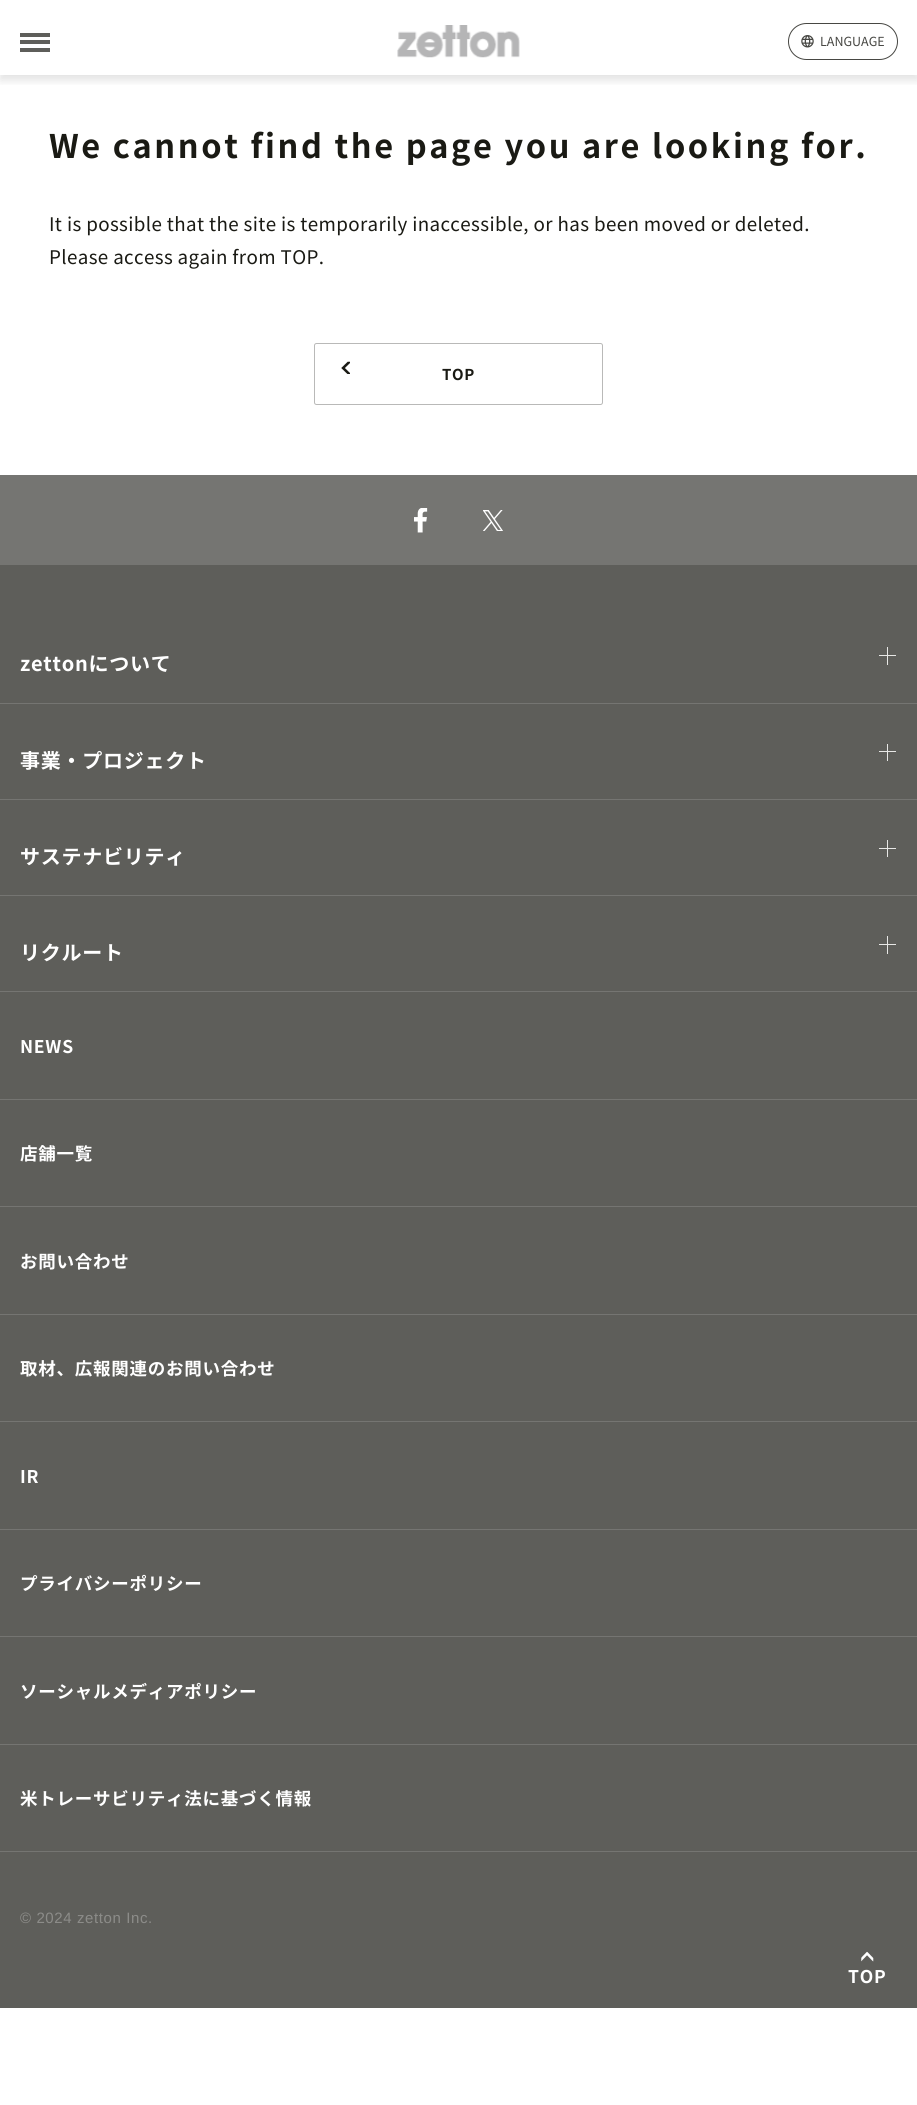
import math
import cairo

surface = cairo.ImageSurface(cairo.FORMAT_RGB24, 917, 2105)
ctx = cairo.Context(surface)
options = cairo.FontOptions()
options.set_hint_metrics(cairo.HINT_METRICS_OFF)
options.set_hint_style(cairo.HINT_STYLE_NONE)
ctx.set_font_options(options)
ctx.set_miter_limit(4)


def set_color(code):
    ctx.set_source_rgb(*(v / 255 for v in bytes.fromhex(code[-6:])))


def draw_text(x, y, s, family, size, color, bold=False, italic=False):
    ctx.select_font_face(family, cairo.FONT_SLANT_ITALIC if italic else cairo.FONT_SLANT_NORMAL, cairo.FONT_WEIGHT_BOLD if bold else cairo.FONT_WEIGHT_NORMAL)
    ctx.set_font_size(size)
    set_color(color)
    ctx.move_to(x, y)
    ctx.show_text(s)


def draw_spaced(x, y, s, letter, word):
    ctx.move_to(x, y)
    for ch in s:
        ctx.show_text(ch)
        ctx.rel_move_to(letter + word * (ch == ' '), 0)


def fill_rect(x, y, w, h, color):
    set_color(color)
    ctx.rectangle(x, y, w, h)
    ctx.fill()


def rounded_rect(x, y, w, h, r):
    ctx.new_sub_path()
    for i, (u, v) in enumerate([(x + w - r, y + h - r), (x + r, y + h - r), (x + r, y + r), (x + w - r, y + r)]):
        ctx.arc(u, v, r, i * math.pi / 2, (i + 1) * math.pi / 2)
    ctx.close_path()


def draw_shadow(x, y, w, h, r, blur, alpha):
    ctx.push_group_with_content(cairo.CONTENT_ALPHA)
    ctx.set_operator(cairo.OPERATOR_SOURCE)
    for i in range(15, -16, -2):
        e = blur * i / 6
        if min(w, h) + 2 * e > 0:
            ctx.set_source_rgba(0, 0, 0, alpha * math.erfc((i - 1) / 8.5) / 2)
            rounded_rect(x - e, y - e, w + 2 * e, h + 2 * e, max(0, min(r + e + blur * .6, min(w, h) / 2 + e)))
            ctx.fill()
    ctx.mask(ctx.pop_group())


def draw_image(path, x, y, w, h):
    ctx.save()
    ctx.set_source_surface(cairo.ImageSurface.create_from_png(path), x, y)
    ctx.rectangle(x, y, w, h)
    ctx.fill()
    ctx.restore()


set_color("#ffffff")
ctx.paint()
ctx.save()
ctx.rectangle(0, 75, 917, 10)
ctx.clip()
set_color("#000000")
draw_shadow(0, 5, 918, 75, 0, 5, 0.12)
ctx.restore()
fill_rect(20, 33, 30, 4, "#5e5e5a")
fill_rect(20, 40, 30, 4, "#5e5e5a")
fill_rect(20, 48, 30, 4, "#5e5e5a")
draw_image("assets/img1.png", 397, 25, 123, 33)
rounded_rect(788.5, 23.5, 109, 36, 18)
set_color("#474743")
ctx.set_line_width(1)
ctx.stroke()
draw_image("assets/img2.png", 801, 35, 13, 13)
draw_text(820, 46, "LANGUAGE", "Noto Sans JP", 12.5, "#474743")
ctx.select_font_face("Noto Sans JP", cairo.FONT_SLANT_NORMAL, cairo.FONT_WEIGHT_BOLD)
ctx.set_font_size(32.5)
set_color("#1a1a14")
draw_spaced(49, 158, "We cannot find the page you are looking for.", 2.6, 0)
ctx.select_font_face("Noto Sans JP")
ctx.set_font_size(18.75)
draw_spaced(49, 231, "It is possible that the site is temporarily inaccessible, or has been moved or deleted.", 0.38, 0)
draw_spaced(49, 264, "Please access again from TOP.", 0.38, 0)
rounded_rect(314.5, 343.5, 288, 61, 2)
set_color("#b9b9b8")
ctx.stroke()
draw_image("assets/img3.png", 341, 361, 9, 13)
ctx.select_font_face("Noto Sans JP", cairo.FONT_SLANT_NORMAL, cairo.FONT_WEIGHT_BOLD)
ctx.set_font_size(15)
set_color("#1a1a14")
draw_spaced(442, 380, "TOP", 0.6, 0)
fill_rect(0, 475, 917, 90, "#757572")
draw_image("assets/img4.png", 414, 508, 14, 25)
draw_image("assets/img5.png", 483, 510, 20, 21)
fill_rect(0, 565, 917, 1443, "#5e5e5a")
fill_rect(0, 703, 917, 1, "#757572")
ctx.set_font_size(20)
set_color("#ffffff")
draw_spaced(20, 671, "zettonについて", 0.75, 0)
fill_rect(879, 655, 17, 1, "#e8e8e6")
fill_rect(887, 647, 1, 18, "#e8e8e6")
fill_rect(0, 799, 917, 1, "#757572")
set_color("#ffffff")
draw_spaced(20, 768, "事業・プロジェクト", 0.75, 0)
fill_rect(879, 751, 17, 1, "#e8e8e6")
fill_rect(887, 744, 1, 17, "#e8e8e6")
fill_rect(0, 895, 917, 1, "#757572")
set_color("#ffffff")
draw_spaced(20, 864, "サステナビリティ", 0.75, 0)
fill_rect(879, 848, 17, 1, "#e8e8e6")
fill_rect(887, 840, 1, 17, "#e8e8e6")
fill_rect(0, 991, 917, 1, "#757572")
set_color("#ffffff")
draw_spaced(20, 960, "リクルート", 0.75, 0)
fill_rect(879, 944, 17, 1, "#e8e8e6")
fill_rect(887, 936, 1, 18, "#e8e8e6")
fill_rect(0, 1099, 917, 1, "#757572")
ctx.set_font_size(17.5)
set_color("#ffffff")
draw_spaced(20, 1053, "NEWS", 0.75, 0)
fill_rect(0, 1206, 917, 1, "#757572")
set_color("#ffffff")
draw_spaced(20, 1160, "店舗一覧", 0.75, 0)
fill_rect(0, 1314, 917, 1, "#757572")
set_color("#ffffff")
draw_spaced(20, 1268, "お問い合わせ", 0.75, 0)
fill_rect(0, 1421, 917, 1, "#757572")
set_color("#ffffff")
draw_spaced(20, 1375, "取材、広報関連のお問い合わせ", 0.75, 0)
fill_rect(0, 1529, 917, 1, "#757572")
set_color("#ffffff")
draw_spaced(20, 1483, "IR", 0.75, 0)
fill_rect(0, 1636, 917, 1, "#757572")
set_color("#ffffff")
draw_spaced(20, 1590, "プライバシーポリシー", 0.75, 0)
fill_rect(0, 1744, 917, 1, "#757572")
set_color("#ffffff")
draw_spaced(20, 1698, "ソーシャルメディアポリシー", 0.75, 0)
fill_rect(0, 1851, 917, 1, "#757572")
set_color("#ffffff")
draw_spaced(20, 1805, "米トレーサビリティ法に基づく情報", 0.75, 0)
ctx.select_font_face("Arimo")
ctx.set_font_size(15)
set_color("#8c8c89")
draw_spaced(20, 1923, "© 2024 zetton Inc.", 0.6, 0)
draw_image("assets/img6.png", 861, 1951, 13, 11)
ctx.select_font_face("Noto Sans JP", cairo.FONT_SLANT_NORMAL, cairo.FONT_WEIGHT_BOLD)
ctx.set_font_size(17.5)
set_color("#ffffff")
draw_spaced(848, 1983, "TOP", 0.75, 0)
surface.write_to_png("output.png")
